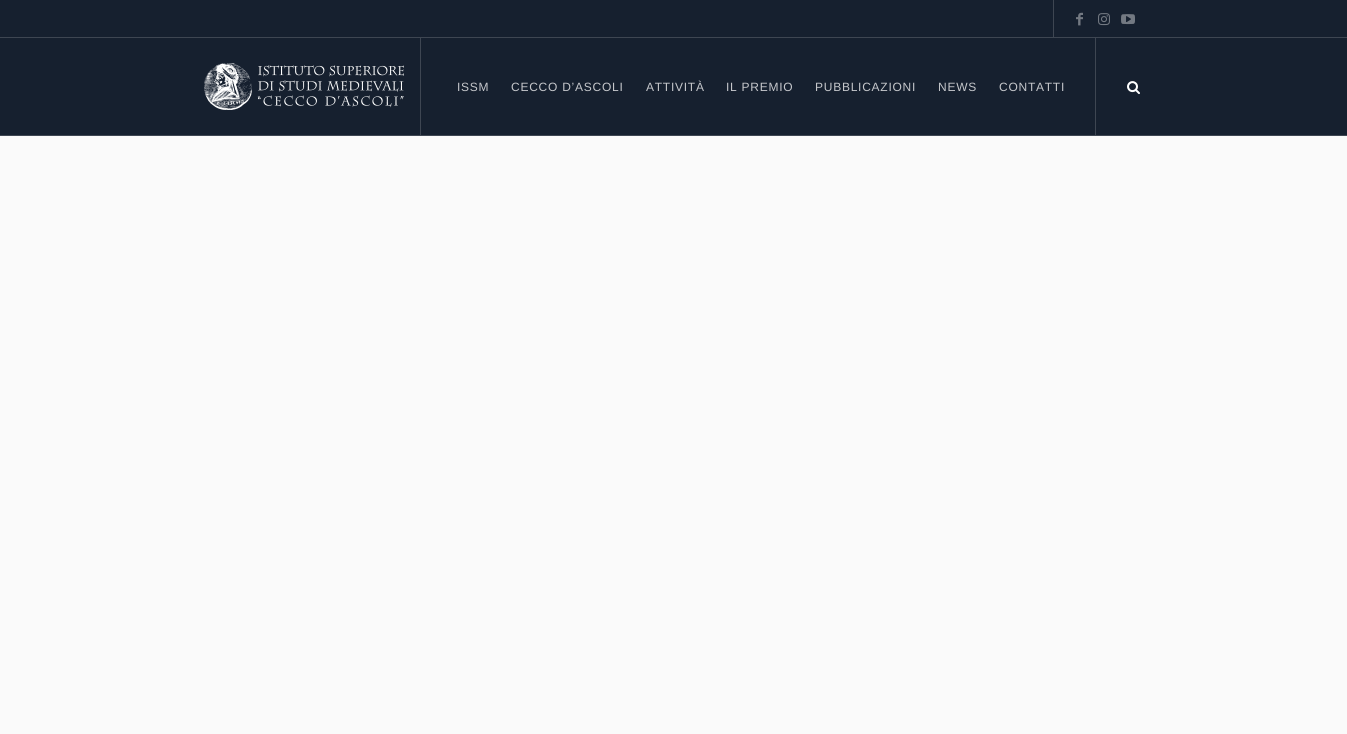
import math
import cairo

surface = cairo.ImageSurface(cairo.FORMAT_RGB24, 1347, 734)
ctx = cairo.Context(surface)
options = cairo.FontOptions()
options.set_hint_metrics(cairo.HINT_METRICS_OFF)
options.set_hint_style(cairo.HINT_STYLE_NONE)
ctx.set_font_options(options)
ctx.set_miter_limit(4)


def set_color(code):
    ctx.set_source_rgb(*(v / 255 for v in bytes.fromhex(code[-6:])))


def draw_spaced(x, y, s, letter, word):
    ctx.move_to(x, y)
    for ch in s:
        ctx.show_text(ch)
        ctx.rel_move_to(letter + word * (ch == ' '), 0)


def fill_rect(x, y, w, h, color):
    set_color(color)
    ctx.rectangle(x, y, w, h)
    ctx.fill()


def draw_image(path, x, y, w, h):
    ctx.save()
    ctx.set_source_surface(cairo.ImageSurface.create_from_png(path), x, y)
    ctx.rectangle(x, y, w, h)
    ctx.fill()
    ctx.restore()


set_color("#fafafa")
ctx.paint()
fill_rect(0, 0, 1347, 135, "#16202f")
fill_rect(0, 37, 1347, 1, "#3e4652")
fill_rect(1053, 0, 1, 37, "#3e4652")
draw_image("assets/img1.png", 1076, 12, 7, 14)
draw_image("assets/img2.png", 1098, 13, 12, 13)
draw_image("assets/img3.png", 1121, 14, 14, 11)
fill_rect(0, 135, 1347, 1, "#3e4652")
draw_image("assets/img4.png", 204, 63, 200, 47)
fill_rect(420, 38, 1, 97, "#3e4652")
ctx.select_font_face("Liberation Sans")
ctx.set_font_size(12)
set_color("#c5c7cb")
draw_spaced(457, 91, "ISSM", 0.75, 0)
draw_spaced(511, 91, "CECCO D’ASCOLI", 0.75, 0)
draw_spaced(646, 91, "ATTIVITÀ", 0.75, 0)
draw_spaced(726, 91, "IL PREMIO", 0.75, 0)
draw_spaced(815, 91, "PUBBLICAZIONI", 0.75, 0)
draw_spaced(938, 91, "NEWS", 0.75, 0)
draw_spaced(999, 91, "CONTATTI", 0.75, 0)
fill_rect(1095, 38, 1, 97, "#3e4652")
draw_image("assets/img5.png", 1127, 81, 13, 14)
surface.write_to_png("output.png")
